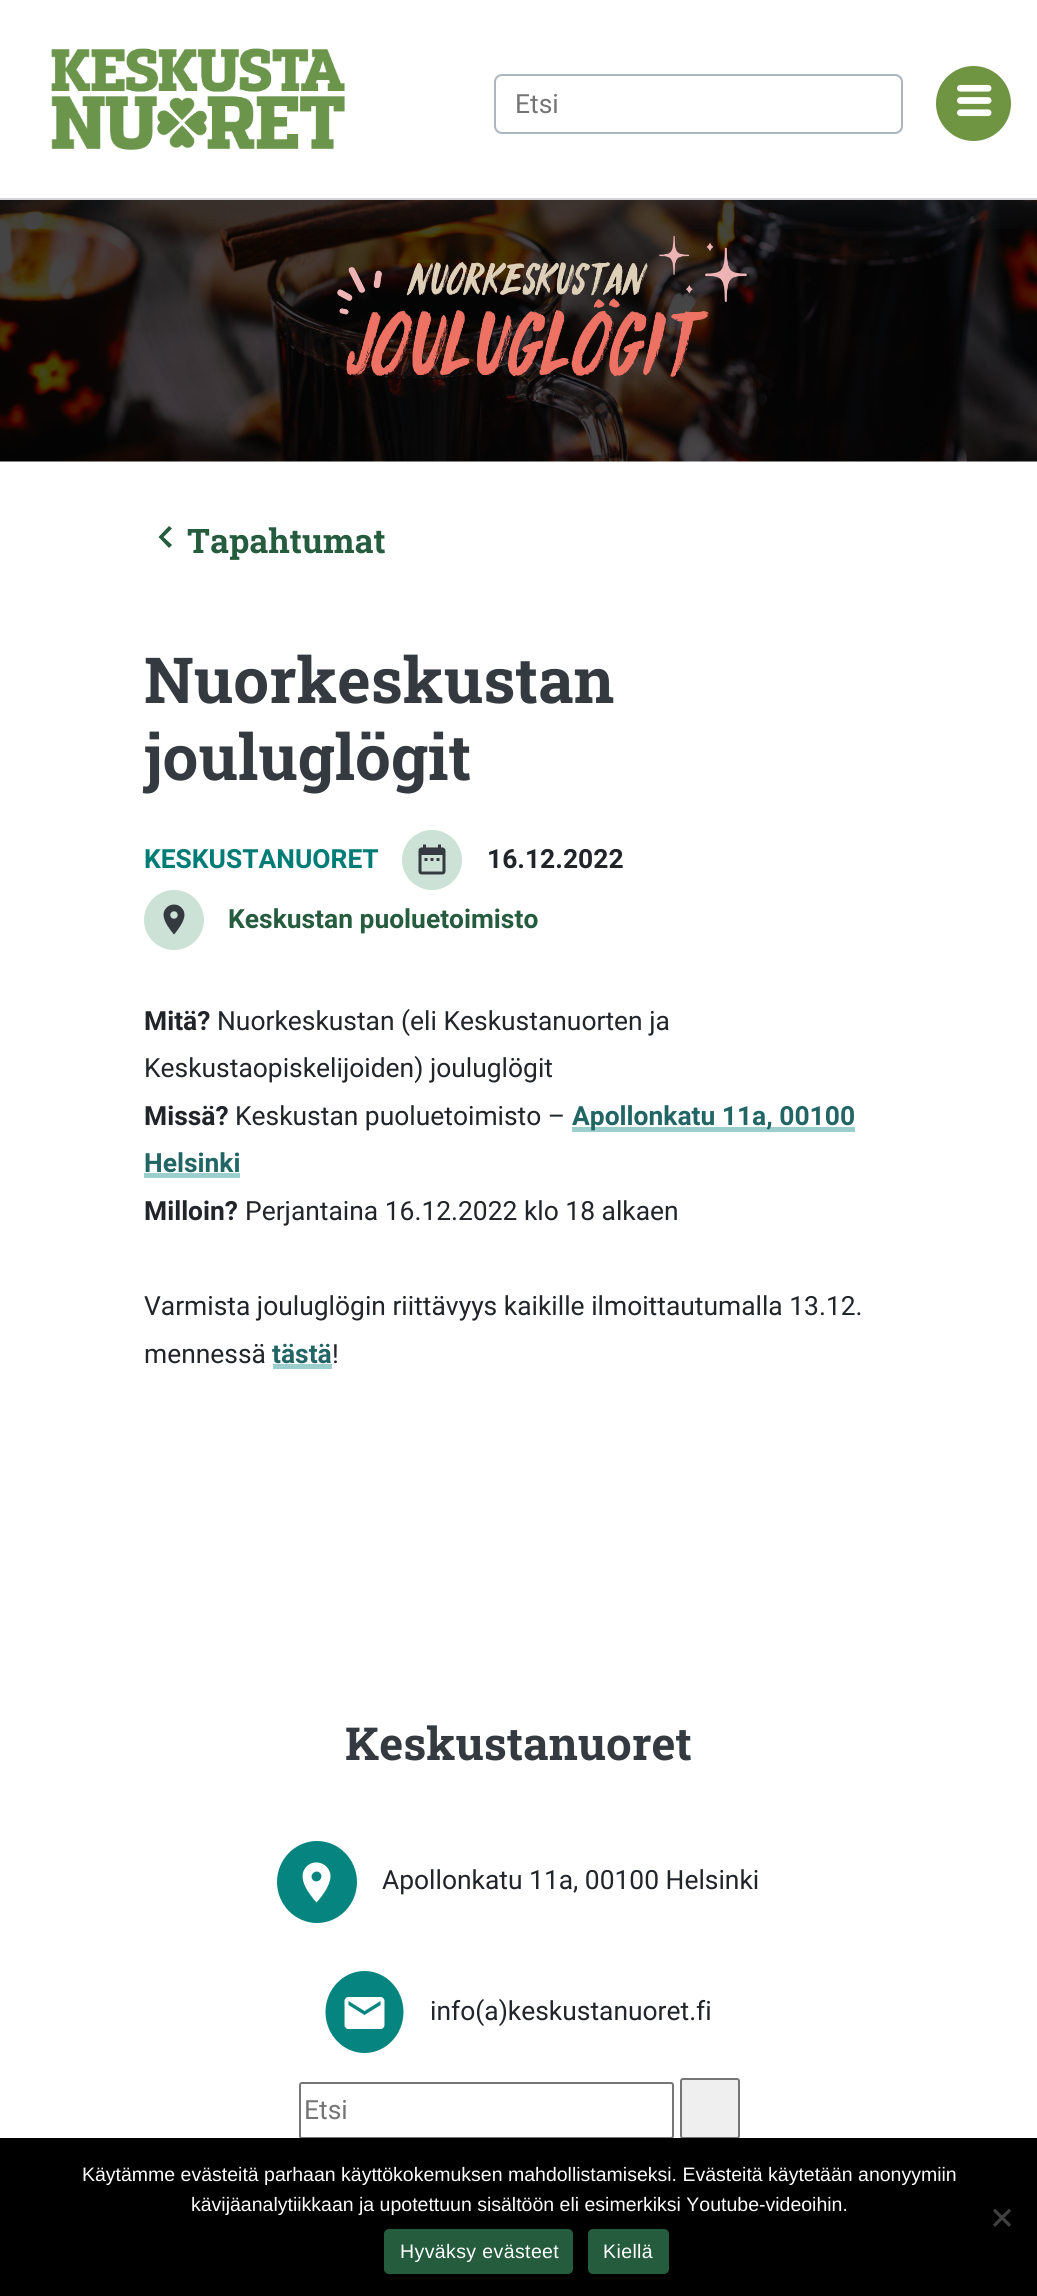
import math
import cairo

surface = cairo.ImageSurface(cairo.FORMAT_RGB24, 1037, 2296)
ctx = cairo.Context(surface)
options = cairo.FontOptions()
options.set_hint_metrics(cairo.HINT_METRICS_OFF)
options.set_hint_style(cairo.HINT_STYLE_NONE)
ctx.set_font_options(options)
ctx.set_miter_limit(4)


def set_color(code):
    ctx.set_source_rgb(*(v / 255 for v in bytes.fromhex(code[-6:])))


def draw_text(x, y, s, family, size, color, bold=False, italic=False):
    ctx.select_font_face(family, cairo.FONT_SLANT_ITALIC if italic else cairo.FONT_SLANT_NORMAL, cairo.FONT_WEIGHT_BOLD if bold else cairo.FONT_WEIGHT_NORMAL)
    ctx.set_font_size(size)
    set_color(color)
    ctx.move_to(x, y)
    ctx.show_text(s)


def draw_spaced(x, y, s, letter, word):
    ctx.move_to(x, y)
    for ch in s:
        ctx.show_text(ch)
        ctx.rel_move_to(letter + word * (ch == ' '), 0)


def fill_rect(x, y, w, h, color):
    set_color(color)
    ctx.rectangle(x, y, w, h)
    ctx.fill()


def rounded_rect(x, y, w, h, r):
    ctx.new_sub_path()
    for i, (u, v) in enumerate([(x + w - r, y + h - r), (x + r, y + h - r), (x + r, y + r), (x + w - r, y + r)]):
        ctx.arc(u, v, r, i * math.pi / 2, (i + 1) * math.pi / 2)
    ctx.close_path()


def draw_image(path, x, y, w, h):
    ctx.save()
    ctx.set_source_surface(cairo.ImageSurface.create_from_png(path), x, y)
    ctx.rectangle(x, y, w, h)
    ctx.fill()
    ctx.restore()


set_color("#ffffff")
ctx.paint()
fill_rect(0, 198, 1037, 2, "#f8f9fa")
draw_image("assets/img1.png", 51, 48, 294, 102)
rounded_rect(495, 75, 407, 58, 7)
set_color("#adb5bd")
ctx.stroke()
draw_text(515, 113, "Etsi", "Roboto", 26.4, "#757575")
set_color("#6f9442")
ctx.new_path()
ctx.arc(973.5, 103.5, 37.5, 0, 2 * math.pi)
ctx.fill()
draw_image("assets/img2.png", 957, 84, 35, 33)
draw_image("assets/img3.png", 0, 200, 1037, 262)
gradient = cairo.LinearGradient(519, 198, 519, 236)
gradient.add_color_stop_rgba(0, 0.204, 0.227, 0.251, 0.2)
gradient.add_color_stop_rgba(1, 0.204, 0.227, 0.251, 0)
ctx.set_source(gradient)
ctx.rectangle(0, 198, 1037, 31)
ctx.fill()
set_color("#255c3e")
ctx.new_path()
ctx.move_to(172, 545)
ctx.line_to(169, 548)
ctx.line_to(158.5, 537)
ctx.line_to(169, 526)
ctx.line_to(172, 528.5)
ctx.line_to(163.5, 537)
ctx.close_path()
ctx.fill()
draw_text(187, 553, "Tapahtumat", "Roboto Slab", 33.75, "#255c3e", bold=True)
draw_text(144, 703, "Nuorkeskustan", "Roboto Slab", 63.5, "#343a40", bold=True)
draw_text(144, 780, "jouluglögit", "Roboto Slab", 63.5, "#343a40", bold=True)
draw_text(144, 868, "KESKUSTANUORET", "Roboto", 26.4, "#007c77", bold=True)
set_color("#cce2d6")
ctx.new_path()
ctx.arc(432, 860, 30, 0, 2 * math.pi)
ctx.fill()
draw_image("assets/img4.png", 418, 844, 28, 31)
draw_text(487, 868, "16.12.2022", "Roboto", 26.4, "#212529", bold=True)
set_color("#cce2d6")
ctx.new_path()
ctx.arc(174, 920, 30, 0, 2 * math.pi)
ctx.fill()
draw_image("assets/img5.png", 163, 904, 22, 31)
draw_text(228, 928, "Keskustan puoluetoimisto", "Roboto", 26.4, "#255c3e", bold=True)
draw_text(144, 1030, "Mitä?", "Roboto", 26.4, "#212529", bold=True)
draw_text(217, 1030, "Nuorkeskustan (eli Keskustanuorten ja", "Roboto", 26.4, "#212529")
draw_text(144, 1077, "Keskustaopiskelijoiden) jouluglögit", "Roboto", 26.4, "#212529")
draw_text(144, 1125, "Missä?", "Roboto", 26.4, "#212529", bold=True)
draw_text(235, 1125, "Keskustan puoluetoimisto –", "Roboto", 26.4, "#212529")
fill_rect(572, 1127, 283, 5, "#9bcecc")
draw_text(572, 1125, "Apollonkatu 11a, 00100", "Roboto", 26.4, "#216565", bold=True)
draw_text(144, 1172, "Helsinki", "Roboto", 26.4, "#216565", bold=True)
fill_rect(144, 1173, 96, 5, "#9bcecc")
draw_text(144, 1220, "Milloin?", "Roboto", 26.4, "#212529", bold=True)
draw_text(245, 1220, "Perjantaina 16.12.2022 klo 18 alkaen", "Roboto", 26.4, "#212529")
draw_text(144, 1315, "Varmista jouluglögin riittävyys kaikille ilmoittautumalla 13.12.", "Roboto", 26.4, "#212529")
draw_text(144, 1363, "mennessä", "Roboto", 26.4, "#212529")
draw_text(272, 1363, "tästä", "Roboto", 26.4, "#216565", bold=True)
fill_rect(273, 1364, 59, 5, "#9bcecc")
draw_text(332, 1363, "!", "Roboto", 26.4, "#212529")
draw_text(345, 1760, "Keskustanuoret", "Roboto Slab", 45.5, "#343a40", bold=True)
set_color("#068480")
ctx.new_path()
ctx.move_to(317, 1841)
ctx.curve_to(339, 1841, 357, 1859.5, 357, 1882)
ctx.curve_to(357, 1904.5, 339, 1923, 317, 1923)
ctx.curve_to(295, 1923, 277, 1904.5, 277, 1882)
ctx.curve_to(277, 1859.5, 295, 1841, 317, 1841)
ctx.close_path()
ctx.fill()
set_color("#ffffff")
ctx.new_path()
ctx.move_to(313, 1880)
ctx.curve_to(317.5, 1884.5, 324.5, 1877.5, 320, 1873)
ctx.curve_to(315.5, 1868.5, 308.5, 1875.5, 313, 1880)
ctx.close_path()
ctx.move_to(306.5, 1866.5)
ctx.curve_to(315.5, 1857.5, 331, 1864.5, 330.5, 1877)
ctx.curve_to(330, 1885.5, 322, 1896.5, 316.5, 1902.5)
ctx.curve_to(309, 1894, 296, 1877.5, 306.5, 1866.5)
ctx.close_path()
ctx.fill()
draw_text(382, 1889, "Apollonkatu 11a, 00100 Helsinki", "Roboto", 26.4, "#212529")
set_color("#068480")
ctx.new_path()
ctx.move_to(364.5, 1971)
ctx.curve_to(386, 1971, 403.5, 1989.5, 403.5, 2012)
ctx.curve_to(403.5, 2034.5, 386, 2053, 364.5, 2053)
ctx.curve_to(343, 2053, 325.5, 2034.5, 325.5, 2012)
ctx.curve_to(325.5, 1989.5, 343, 1971, 364.5, 1971)
ctx.close_path()
ctx.fill()
draw_image("assets/img6.png", 344, 1997, 41, 32)
draw_text(430, 2020, "info(a)keskustanuoret.fi", "Roboto", 26.4, "#212529")
rounded_rect(300, 2083, 373, 55, 2)
set_color("#767676")
ctx.stroke()
draw_text(304, 2119, "Etsi", "Roboto", 26.4, "#757575")
set_color("#efefef")
rounded_rect(681, 2079, 58, 59, 2)
ctx.fill_preserve()
set_color("#767676")
ctx.stroke()
fill_rect(0, 2138, 1037, 158, "#000000")
draw_text(82, 2181, "Käytämme evästeitä parhaan käyttökokemuksen mahdollistamiseksi. Evästeitä käytetään anonyymiin", "Liberation Sans", 19.5, "#ffffff")
draw_text(191, 2211, "kävijäanalytiikkaan ja upotettuun sisältöön eli esimerkiksi Youtube-videoihin.", "Liberation Sans", 19.5, "#ffffff")
set_color("#404040")
ctx.new_path()
ctx.move_to(1009, 2208.5)
ctx.line_to(1011, 2211)
ctx.line_to(995, 2227)
ctx.line_to(993, 2224.5)
ctx.close_path()
ctx.fill()
ctx.new_path()
ctx.move_to(993, 2211)
ctx.line_to(995, 2208.5)
ctx.line_to(1011, 2224.5)
ctx.line_to(1009, 2227)
ctx.close_path()
ctx.fill()
set_color("#255c3e")
rounded_rect(384, 2229, 189, 45, 5)
ctx.fill()
set_color("#ffffff")
draw_spaced(400, 2258, "Hyväksy evästeet", 0.4, 0)
set_color("#255c3e")
rounded_rect(588, 2229, 81, 45, 5)
ctx.fill()
set_color("#ffffff")
draw_spaced(603, 2258, "Kiellä", 0.4, 0)
surface.write_to_png("output.png")
